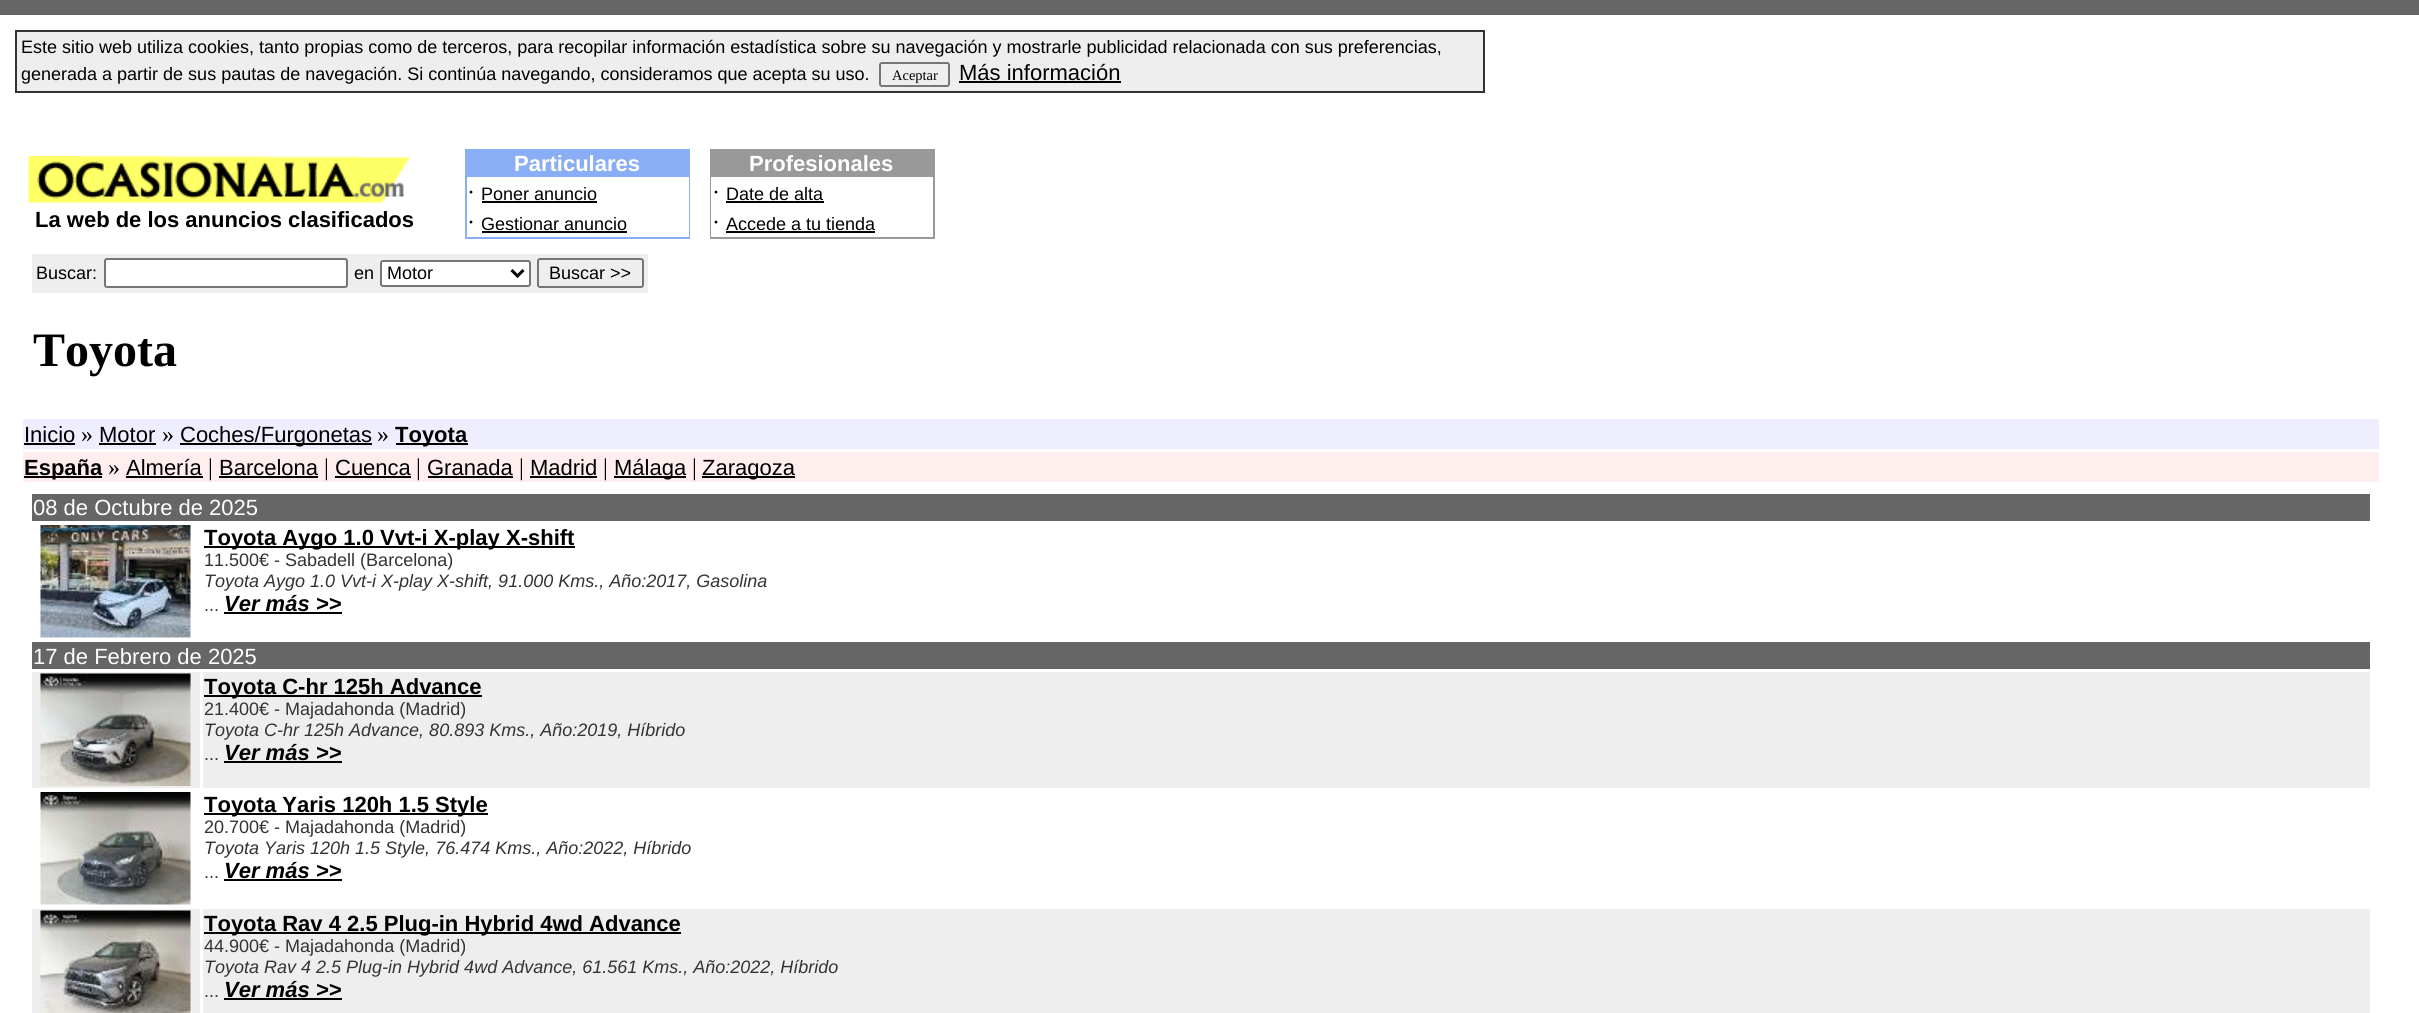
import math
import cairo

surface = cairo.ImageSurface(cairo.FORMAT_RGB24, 2419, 1013)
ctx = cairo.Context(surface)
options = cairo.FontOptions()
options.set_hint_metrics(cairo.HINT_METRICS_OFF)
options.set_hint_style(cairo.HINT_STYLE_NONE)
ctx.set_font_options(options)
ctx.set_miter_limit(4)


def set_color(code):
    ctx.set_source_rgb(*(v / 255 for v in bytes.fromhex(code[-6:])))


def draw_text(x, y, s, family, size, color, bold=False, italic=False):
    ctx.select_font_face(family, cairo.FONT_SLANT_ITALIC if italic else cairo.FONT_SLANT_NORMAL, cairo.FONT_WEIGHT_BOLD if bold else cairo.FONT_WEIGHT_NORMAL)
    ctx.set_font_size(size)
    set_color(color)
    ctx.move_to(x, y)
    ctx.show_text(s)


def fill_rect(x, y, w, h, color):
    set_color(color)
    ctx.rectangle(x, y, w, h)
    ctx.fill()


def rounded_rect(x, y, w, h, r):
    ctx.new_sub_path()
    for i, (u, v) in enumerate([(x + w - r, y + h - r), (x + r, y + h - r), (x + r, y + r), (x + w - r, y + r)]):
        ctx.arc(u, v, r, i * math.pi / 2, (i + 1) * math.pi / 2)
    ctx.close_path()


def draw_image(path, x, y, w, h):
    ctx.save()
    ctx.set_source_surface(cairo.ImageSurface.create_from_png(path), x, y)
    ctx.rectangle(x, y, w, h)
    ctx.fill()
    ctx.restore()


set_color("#ffffff")
ctx.paint()
fill_rect(0, 0, 2419, 15, "#666666")
set_color("#eeeeee")
ctx.rectangle(16, 31, 1468, 61)
ctx.fill_preserve()
set_color("#333333")
ctx.stroke()
draw_text(21, 53, "Este sitio web utiliza cookies, tanto propias como de terceros, para recopilar información estadística sobre su navegación y mostrarle publicidad relacionada con sus preferencias,", "Liberation Sans", 18, "#000000")
draw_text(21, 80, "generada a partir de sus pautas de navegación. Si continúa navegando, consideramos que acepta su uso.", "Liberation Sans", 18, "#000000")
rounded_rect(880, 63, 69, 23, 2)
set_color("#767676")
ctx.stroke()
draw_text(892, 80, "Aceptar", "Liberation Serif", 14.5, "#000000")
draw_text(959, 80, "Más información", "Liberation Sans", 22, "#000000")
fill_rect(959, 81, 162, 2, "#000000")
draw_image("assets/img1.png", 28, 156, 382, 47)
draw_text(35, 227, "La web de los anuncios clasificados", "Liberation Sans", 22, "#000000", bold=True)
fill_rect(465, 149, 225, 90, "#8aaef5")
draw_text(514, 171, "Particulares", "Liberation Sans", 22, "#ffffff", bold=True)
fill_rect(467, 177, 222, 60, "#ffffff")
draw_text(467, 200, "·", "Liberation Serif", 24, "#000000")
draw_text(481, 200, "Poner anuncio", "Liberation Sans", 18, "#000000")
fill_rect(482, 201, 115, 2, "#000000")
draw_text(467, 230, "·", "Liberation Serif", 24, "#000000")
draw_text(481, 230, "Gestionar anuncio", "Liberation Sans", 18, "#000000")
fill_rect(482, 231, 145, 2, "#000000")
fill_rect(710, 149, 225, 90, "#999999")
draw_text(749, 171, "Profesionales", "Liberation Sans", 22, "#ffffff", bold=True)
fill_rect(711, 177, 222, 60, "#ffffff")
draw_text(712, 200, "·", "Liberation Serif", 24, "#000000")
draw_text(726, 200, "Date de alta", "Liberation Sans", 18, "#000000")
fill_rect(726, 201, 98, 2, "#000000")
draw_text(712, 230, "·", "Liberation Serif", 24, "#000000")
draw_text(726, 230, "Accede a tu tienda", "Liberation Sans", 18, "#000000")
fill_rect(726, 231, 149, 2, "#000000")
fill_rect(32, 254, 616, 39, "#eeeeee")
draw_text(36, 279, "Buscar:", "Liberation Sans", 18, "#000000")
set_color("#ffffff")
rounded_rect(105, 259, 242, 28, 2)
ctx.fill_preserve()
set_color("#767676")
ctx.stroke()
draw_text(354, 279, "en", "Liberation Sans", 18, "#000000")
set_color("#ffffff")
rounded_rect(381, 261, 149, 25, 2)
ctx.fill_preserve()
set_color("#767676")
ctx.stroke()
ctx.new_path()
ctx.move_to(511.5, 270)
ctx.line_to(517.5, 276)
ctx.line_to(523.5, 270)
set_color("#000000")
ctx.set_line_width(3)
ctx.stroke()
draw_text(387, 279, "Motor", "Liberation Sans", 18, "#000000")
rounded_rect(538, 259, 105, 28, 2)
set_color("#767676")
ctx.set_line_width(2)
ctx.stroke()
draw_text(549, 279, "Buscar >>", "Liberation Sans", 18, "#000000")
draw_text(33, 366, "Toyota", "Liberation Serif", 48, "#000000", bold=True)
fill_rect(23, 419, 2356, 30, "#eeeeff")
draw_text(24, 442, "Inicio", "Liberation Sans", 22, "#000000")
fill_rect(24, 443, 51, 2, "#000000")
draw_text(81, 442, "»", "Liberation Serif", 24, "#000000")
draw_text(99, 442, "Motor", "Liberation Sans", 22, "#000000")
fill_rect(99, 443, 57, 2, "#000000")
draw_text(162, 442, "»", "Liberation Serif", 24, "#000000")
fill_rect(180, 443, 192, 2, "#000000")
draw_text(180, 442, "Coches/Furgonetas", "Liberation Sans", 22, "#000000")
draw_text(377, 442, "»", "Liberation Serif", 24, "#000000")
fill_rect(396, 443, 72, 2, "#000000")
draw_text(395, 442, "Toyota", "Liberation Sans", 22, "#000000", bold=True)
fill_rect(23, 452, 2356, 30, "#ffeeee")
fill_rect(24, 476, 78, 2, "#000000")
draw_text(24, 475, "España", "Liberation Sans", 22, "#000000", bold=True)
draw_text(108, 475, "»", "Liberation Serif", 24, "#000000")
draw_text(126, 475, "Almería", "Liberation Sans", 22, "#000000")
fill_rect(126, 476, 77, 2, "#000000")
draw_text(208, 475, "|", "Liberation Serif", 24, "#000000")
draw_text(219, 475, "Barcelona", "Liberation Sans", 22, "#000000")
fill_rect(219, 476, 99, 2, "#000000")
draw_text(324, 475, "|", "Liberation Serif", 24, "#000000")
draw_text(335, 475, "Cuenca", "Liberation Sans", 22, "#000000")
fill_rect(335, 476, 76, 2, "#000000")
draw_text(416, 475, "|", "Liberation Serif", 24, "#000000")
draw_text(427, 475, "Granada", "Liberation Sans", 22, "#000000")
fill_rect(428, 476, 85, 2, "#000000")
draw_text(519, 475, "|", "Liberation Serif", 24, "#000000")
draw_text(530, 475, "Madrid", "Liberation Sans", 22, "#000000")
fill_rect(530, 476, 67, 2, "#000000")
draw_text(603, 475, "|", "Liberation Serif", 24, "#000000")
fill_rect(614, 476, 72, 2, "#000000")
draw_text(614, 475, "Málaga", "Liberation Sans", 22, "#000000")
draw_text(692, 475, "|", "Liberation Serif", 24, "#000000")
fill_rect(702, 476, 93, 2, "#000000")
draw_text(702, 475, "Zaragoza", "Liberation Sans", 22, "#000000")
fill_rect(32, 494, 2338, 27, "#666666")
draw_text(33, 515, "08 de Octubre de 2025", "Liberation Sans", 22, "#ffffff")
draw_image("assets/img2.png", 40, 525, 151, 113)
fill_rect(204, 546, 371, 2, "#000000")
draw_text(204, 545, "Toyota Aygo 1.0 Vvt-i X-play X-shift", "Liberation Sans", 22, "#000000", bold=True)
draw_text(204, 566, "11.500€ - Sabadell (Barcelona)", "Liberation Sans", 18, "#333333")
draw_text(204, 587, "Toyota Aygo 1.0 Vvt-i X-play X-shift, 91.000 Kms., Año:2017, Gasolina", "Liberation Sans", 18, "#333333", italic=True)
draw_text(204, 611, "...", "Liberation Sans", 18, "#333333")
fill_rect(224, 612, 118, 2, "#000000")
draw_text(224, 611, "Ver más >>", "Liberation Sans", 22, "#000000", bold=True, italic=True)
fill_rect(32, 642, 2338, 27, "#666666")
draw_text(33, 664, "17 de Febrero de 2025", "Liberation Sans", 22, "#ffffff")
fill_rect(32, 672, 168, 116, "#eeeeee")
draw_image("assets/img3.png", 40, 673, 151, 113)
fill_rect(203, 672, 2167, 116, "#eeeeee")
fill_rect(204, 695, 278, 2, "#000000")
draw_text(204, 694, "Toyota C-hr 125h Advance", "Liberation Sans", 22, "#000000", bold=True)
draw_text(204, 715, "21.400€ - Majadahonda (Madrid)", "Liberation Sans", 18, "#333333")
draw_text(204, 736, "Toyota C-hr 125h Advance, 80.893 Kms., Año:2019, Híbrido", "Liberation Sans", 18, "#333333", italic=True)
draw_text(204, 760, "...", "Liberation Sans", 18, "#333333")
fill_rect(224, 761, 118, 2, "#000000")
draw_text(224, 760, "Ver más >>", "Liberation Sans", 22, "#000000", bold=True, italic=True)
draw_image("assets/img4.png", 40, 792, 151, 113)
fill_rect(204, 813, 284, 2, "#000000")
draw_text(204, 812, "Toyota Yaris 120h 1.5 Style", "Liberation Sans", 22, "#000000", bold=True)
draw_text(204, 833, "20.700€ - Majadahonda (Madrid)", "Liberation Sans", 18, "#333333")
draw_text(204, 854, "Toyota Yaris 120h 1.5 Style, 76.474 Kms., Año:2022, Híbrido", "Liberation Sans", 18, "#333333", italic=True)
draw_text(204, 878, "...", "Liberation Sans", 18, "#333333")
fill_rect(224, 879, 118, 2, "#000000")
draw_text(224, 878, "Ver más >>", "Liberation Sans", 22, "#000000", bold=True, italic=True)
fill_rect(32, 909, 168, 104, "#eeeeee")
draw_image("assets/img5.png", 40, 910, 151, 103)
fill_rect(203, 909, 2167, 104, "#eeeeee")
fill_rect(204, 932, 477, 2, "#000000")
draw_text(204, 931, "Toyota Rav 4 2.5 Plug-in Hybrid 4wd Advance", "Liberation Sans", 22, "#000000", bold=True)
draw_text(204, 952, "44.900€ - Majadahonda (Madrid)", "Liberation Sans", 18, "#333333")
draw_text(204, 973, "Toyota Rav 4 2.5 Plug-in Hybrid 4wd Advance, 61.561 Kms., Año:2022, Híbrido", "Liberation Sans", 18, "#333333", italic=True)
draw_text(204, 997, "...", "Liberation Sans", 18, "#333333")
fill_rect(224, 998, 118, 2, "#000000")
draw_text(224, 997, "Ver más >>", "Liberation Sans", 22, "#000000", bold=True, italic=True)
surface.write_to_png("output.png")
